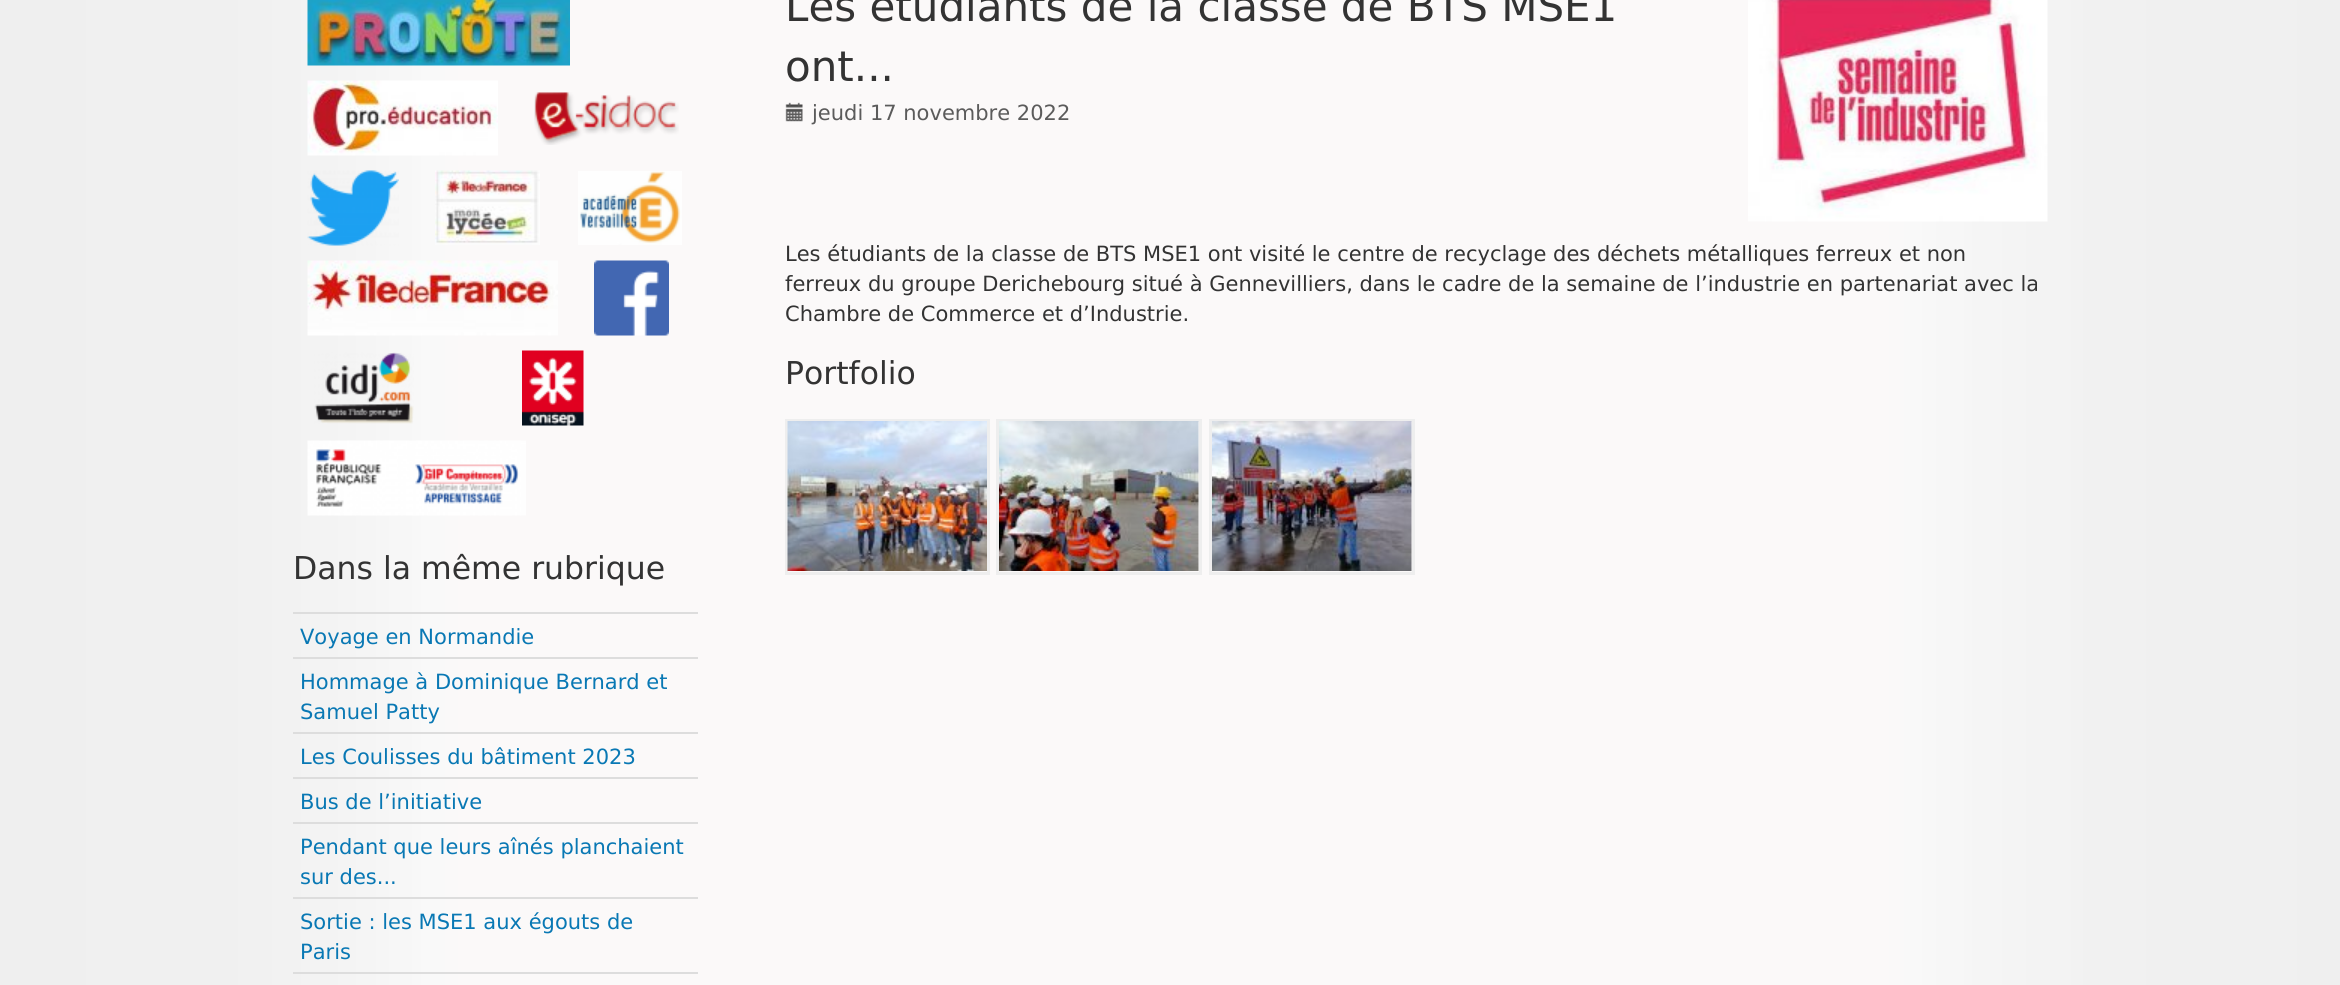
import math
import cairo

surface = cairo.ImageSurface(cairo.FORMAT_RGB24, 2340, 985)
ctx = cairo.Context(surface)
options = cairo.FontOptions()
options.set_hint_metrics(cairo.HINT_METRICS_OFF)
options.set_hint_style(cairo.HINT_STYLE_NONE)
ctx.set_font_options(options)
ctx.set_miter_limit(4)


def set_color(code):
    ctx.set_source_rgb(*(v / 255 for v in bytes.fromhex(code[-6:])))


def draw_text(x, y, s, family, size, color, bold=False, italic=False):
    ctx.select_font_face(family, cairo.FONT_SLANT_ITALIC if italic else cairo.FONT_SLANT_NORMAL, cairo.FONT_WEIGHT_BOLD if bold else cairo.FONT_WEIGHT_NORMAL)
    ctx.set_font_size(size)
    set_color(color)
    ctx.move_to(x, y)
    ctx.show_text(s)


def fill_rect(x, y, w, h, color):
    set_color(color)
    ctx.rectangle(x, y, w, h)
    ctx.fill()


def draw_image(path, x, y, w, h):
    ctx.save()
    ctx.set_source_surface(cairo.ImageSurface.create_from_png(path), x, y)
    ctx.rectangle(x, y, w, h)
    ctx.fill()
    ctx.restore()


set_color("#ffffff")
ctx.paint()
draw_image("assets/img1.png", 0, 0, 2340, 985)
draw_text(785, 21, "Les étudiants de la classe de BTS MSE1", "DejaVu Sans", 42, "#333333")
draw_text(785, 81, "ont...", "DejaVu Sans", 42, "#333333")
draw_image("assets/img2.png", 1748, 0, 300, 222)
draw_image("assets/img3.png", 785, 102, 18, 20)
draw_text(812, 120, "jeudi 17 novembre 2022", "DejaVu Sans", 21, "#5b5b5b")
draw_text(785, 261, "Les étudiants de la classe de BTS MSE1 ont visité le centre de recyclage des déchets métalliques ferreux et non", "DejaVu Sans", 21, "#333333")
draw_text(785, 291, "ferreux du groupe Derichebourg situé à Gennevilliers, dans le cadre de la semaine de l’industrie en partenariat avec la", "DejaVu Sans", 21, "#333333")
draw_text(785, 321, "Chambre de Commerce et d’Industrie.", "DejaVu Sans", 21, "#333333")
draw_text(785, 384, "Portfolio", "DejaVu Sans", 31.5, "#333333")
ctx.rectangle(786.5, 420.5, 202, 153)
set_color("#eeeeee")
ctx.set_line_width(3)
ctx.stroke()
ctx.rectangle(997.5, 420.5, 203, 153)
ctx.stroke()
ctx.rectangle(1210.5, 420.5, 203, 153)
ctx.stroke()
draw_image("assets/img4.png", 787, 421, 200, 150)
draw_image("assets/img5.png", 999, 421, 200, 150)
draw_image("assets/img6.png", 1212, 421, 200, 150)
draw_image("assets/img7.png", 307, 0, 263, 66)
draw_image("assets/img8.png", 307, 80, 191, 76)
draw_image("assets/img9.png", 534, 92, 145, 53)
draw_image("assets/img10.png", 307, 170, 92, 76)
draw_image("assets/img11.png", 435, 170, 105, 75)
draw_image("assets/img12.png", 578, 171, 104, 74)
draw_image("assets/img13.png", 307, 260, 251, 76)
draw_image("assets/img14.png", 594, 260, 75, 76)
draw_image("assets/img15.png", 314, 352, 100, 72)
draw_image("assets/img16.png", 522, 350, 62, 76)
draw_image("assets/img17.png", 307, 440, 219, 76)
draw_text(293, 579, "Dans la même rubrique", "DejaVu Sans", 31.5, "#333333")
fill_rect(293, 612, 405, 2, "#dddddd")
draw_text(300, 644, "Voyage en Normandie", "DejaVu Sans", 21, "#0978b4")
fill_rect(293, 657, 405, 2, "#dddddd")
draw_text(300, 689, "Hommage à Dominique Bernard et", "DejaVu Sans", 21, "#0978b4")
draw_text(300, 719, "Samuel Patty", "DejaVu Sans", 21, "#0978b4")
fill_rect(293, 732, 405, 2, "#dddddd")
draw_text(300, 764, "Les Coulisses du bâtiment 2023", "DejaVu Sans", 21, "#0978b4")
fill_rect(293, 777, 405, 2, "#dddddd")
draw_text(300, 809, "Bus de l’initiative", "DejaVu Sans", 21, "#0978b4")
fill_rect(293, 822, 405, 2, "#dddddd")
draw_text(300, 854, "Pendant que leurs aînés planchaient", "DejaVu Sans", 21, "#0978b4")
draw_text(300, 884, "sur des...", "DejaVu Sans", 21, "#0978b4")
fill_rect(293, 897, 405, 2, "#dddddd")
draw_text(300, 929, "Sortie : les MSE1 aux égouts de", "DejaVu Sans", 21, "#0978b4")
draw_text(300, 959, "Paris", "DejaVu Sans", 21, "#0978b4")
fill_rect(293, 972, 405, 2, "#dddddd")
surface.write_to_png("output.png")
